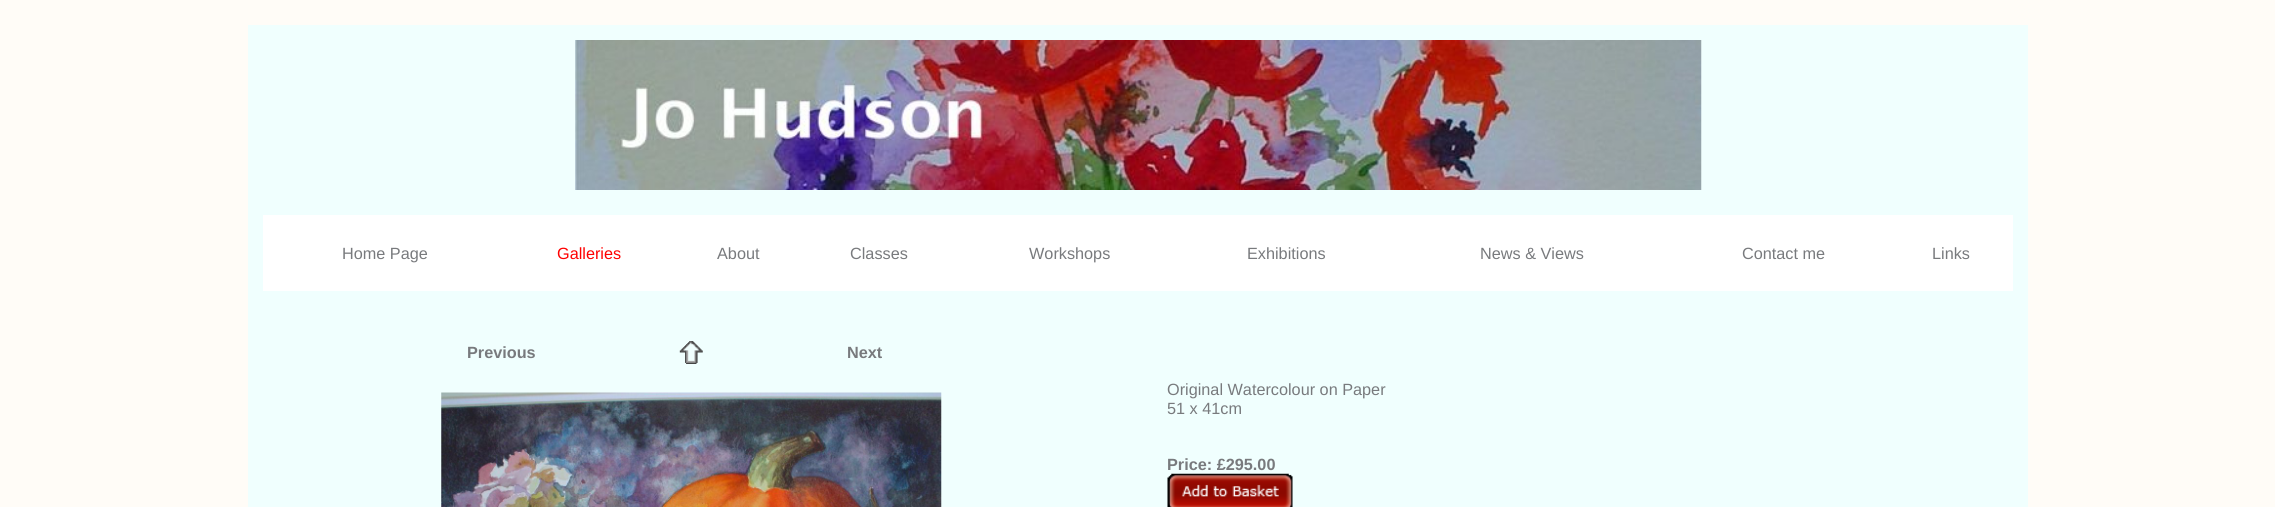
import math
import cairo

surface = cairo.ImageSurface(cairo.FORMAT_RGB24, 2275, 507)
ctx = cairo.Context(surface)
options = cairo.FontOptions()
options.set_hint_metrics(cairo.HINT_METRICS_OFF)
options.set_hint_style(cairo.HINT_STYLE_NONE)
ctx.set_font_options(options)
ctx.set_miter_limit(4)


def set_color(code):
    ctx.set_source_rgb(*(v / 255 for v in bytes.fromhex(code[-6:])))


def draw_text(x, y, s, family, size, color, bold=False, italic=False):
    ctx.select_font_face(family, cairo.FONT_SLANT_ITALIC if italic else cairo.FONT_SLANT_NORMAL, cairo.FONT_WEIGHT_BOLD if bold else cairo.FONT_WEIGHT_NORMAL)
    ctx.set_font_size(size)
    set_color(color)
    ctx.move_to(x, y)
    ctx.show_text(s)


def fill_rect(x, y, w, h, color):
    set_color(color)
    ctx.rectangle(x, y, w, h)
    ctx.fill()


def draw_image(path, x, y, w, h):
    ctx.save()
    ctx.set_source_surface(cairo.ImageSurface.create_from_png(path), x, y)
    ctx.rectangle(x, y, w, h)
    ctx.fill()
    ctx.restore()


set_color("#fffcf7")
ctx.paint()
fill_rect(248, 25, 1780, 482, "#f0fffe")
draw_image("assets/img1.png", 575, 40, 1127, 150)
fill_rect(263, 215, 1750, 76, "#ffffff")
draw_text(342, 259, "Home Page", "Liberation Sans", 16.25, "#787a7d")
draw_text(557, 259, "Galleries", "Liberation Sans", 16.25, "#ff0000")
draw_text(717, 259, "About", "Liberation Sans", 16.25, "#787a7d")
draw_text(850, 259, "Classes", "Liberation Sans", 16.25, "#787a7d")
draw_text(1029, 259, "Workshops", "Liberation Sans", 16.25, "#787a7d")
draw_text(1247, 259, "Exhibitions", "Liberation Sans", 16.25, "#787a7d")
draw_text(1480, 259, "News & Views", "Liberation Sans", 16.25, "#787a7d")
draw_text(1742, 259, "Contact me", "Liberation Sans", 16.25, "#787a7d")
draw_text(1932, 259, "Links", "Liberation Sans", 16.25, "#787a7d")
draw_text(467, 358, "Previous", "Liberation Sans", 16.25, "#787a7d", bold=True)
draw_image("assets/img2.png", 679, 341, 24, 23)
draw_text(847, 358, "Next", "Liberation Sans", 16.25, "#787a7d", bold=True)
draw_image("assets/img3.png", 441, 392, 501, 115)
draw_text(1167, 395, "Original Watercolour on Paper", "Liberation Sans", 16.25, "#787a7d")
draw_text(1167, 414, "51 x 41cm", "Liberation Sans", 16.25, "#787a7d")
draw_text(1167, 470, "Price: £295.00", "Liberation Sans", 16.25, "#787a7d", bold=True)
draw_image("assets/img4.png", 1167, 473, 126, 34)
surface.write_to_png("output.png")
